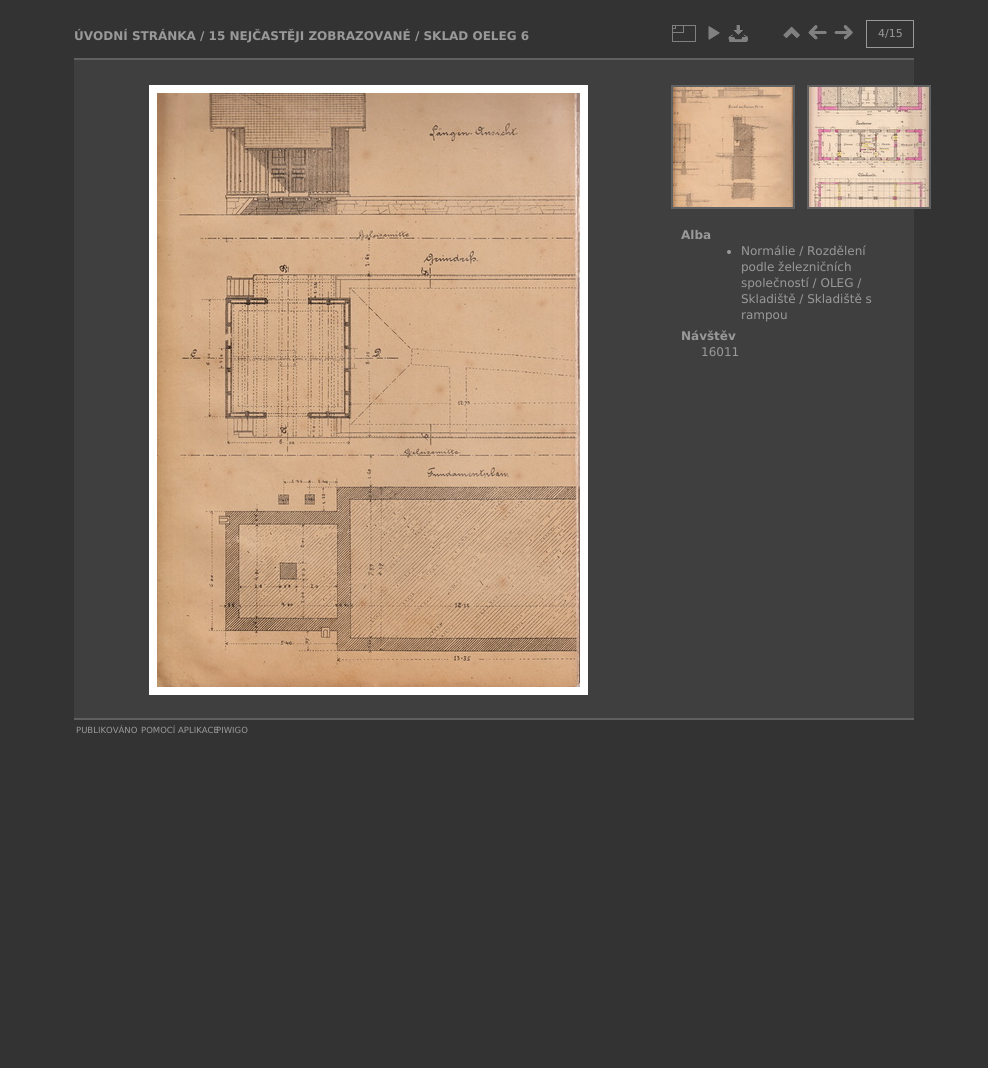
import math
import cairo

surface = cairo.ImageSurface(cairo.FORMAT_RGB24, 988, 1068)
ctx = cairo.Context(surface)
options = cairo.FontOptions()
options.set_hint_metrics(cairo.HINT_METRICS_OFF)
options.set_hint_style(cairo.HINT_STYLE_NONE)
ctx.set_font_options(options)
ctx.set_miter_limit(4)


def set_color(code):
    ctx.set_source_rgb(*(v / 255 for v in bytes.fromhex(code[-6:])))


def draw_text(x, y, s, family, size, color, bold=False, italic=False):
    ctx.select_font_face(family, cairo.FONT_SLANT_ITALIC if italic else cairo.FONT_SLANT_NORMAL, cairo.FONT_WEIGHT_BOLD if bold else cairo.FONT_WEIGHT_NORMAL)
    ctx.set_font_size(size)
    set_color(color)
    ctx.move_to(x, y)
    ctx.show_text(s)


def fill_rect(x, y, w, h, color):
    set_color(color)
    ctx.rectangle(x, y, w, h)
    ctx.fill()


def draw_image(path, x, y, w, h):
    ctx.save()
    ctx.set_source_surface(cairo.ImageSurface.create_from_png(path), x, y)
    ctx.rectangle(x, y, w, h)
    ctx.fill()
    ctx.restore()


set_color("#333333")
ctx.paint()
fill_rect(74, 718, 840, 2, "#606060")
draw_text(74, 40, "ÚVODNÍ STRÁNKA / 15 NEJČASTĚJI ZOBRAZOVANÉ / SKLAD OELEG 6", "DejaVu Sans", 12, "#999999", bold=True)
draw_image("assets/img1.png", 672, 25, 24, 17)
draw_image("assets/img2.png", 708, 26, 12, 14)
draw_image("assets/img3.png", 728, 25, 21, 17)
draw_image("assets/img4.png", 783, 26, 17, 12)
draw_image("assets/img5.png", 808, 25, 19, 15)
draw_image("assets/img6.png", 834, 25, 19, 15)
ctx.rectangle(866.5, 20.5, 47, 27)
ctx.set_line_width(1)
ctx.stroke()
draw_text(878, 37, "4/15", "DejaVu Sans", 11, "#999999")
fill_rect(74, 60, 840, 658, "#3f3f3f")
fill_rect(74, 58, 840, 2, "#606060")
ctx.rectangle(153, 89, 431, 602)
set_color("#ffffff")
ctx.set_line_width(8)
ctx.stroke()
draw_image("assets/img7.png", 157, 93, 423, 594)
ctx.rectangle(672, 86, 122, 122)
set_color("#606060")
ctx.set_line_width(2)
ctx.stroke()
draw_image("assets/img8.png", 673, 87, 120, 120)
ctx.rectangle(808, 86, 122, 122)
ctx.stroke()
draw_image("assets/img9.png", 809, 87, 120, 120)
draw_text(681, 239, "Alba", "DejaVu Sans", 12, "#999999", bold=True)
ctx.new_path()
ctx.arc(729, 252, 2, 0, 2 * math.pi)
ctx.fill()
draw_text(741, 255, "Normálie / Rozdělení", "DejaVu Sans", 12, "#999999")
draw_text(741, 271, "podle železničních", "DejaVu Sans", 12, "#999999")
draw_text(741, 287, "společností / OLEG /", "DejaVu Sans", 12, "#999999")
draw_text(741, 303, "Skladiště / Skladiště s", "DejaVu Sans", 12, "#999999")
draw_text(741, 319, "rampou", "DejaVu Sans", 12, "#999999")
draw_text(681, 340, "Návštěv", "DejaVu Sans", 12, "#999999", bold=True)
draw_text(701, 356, "16011", "DejaVu Sans", 12, "#999999")
draw_text(76, 733, "PUBLIKOVÁNO", "DejaVu Sans", 8.5, "#999999")
draw_text(141, 733, "POMOCÍ", "DejaVu Sans", 8.5, "#999999")
draw_text(178, 733, "APLIKACE", "DejaVu Sans", 8.5, "#999999")
draw_text(216, 733, "PIWIGO", "DejaVu Sans", 8.5, "#999999")
surface.write_to_png("output.png")
